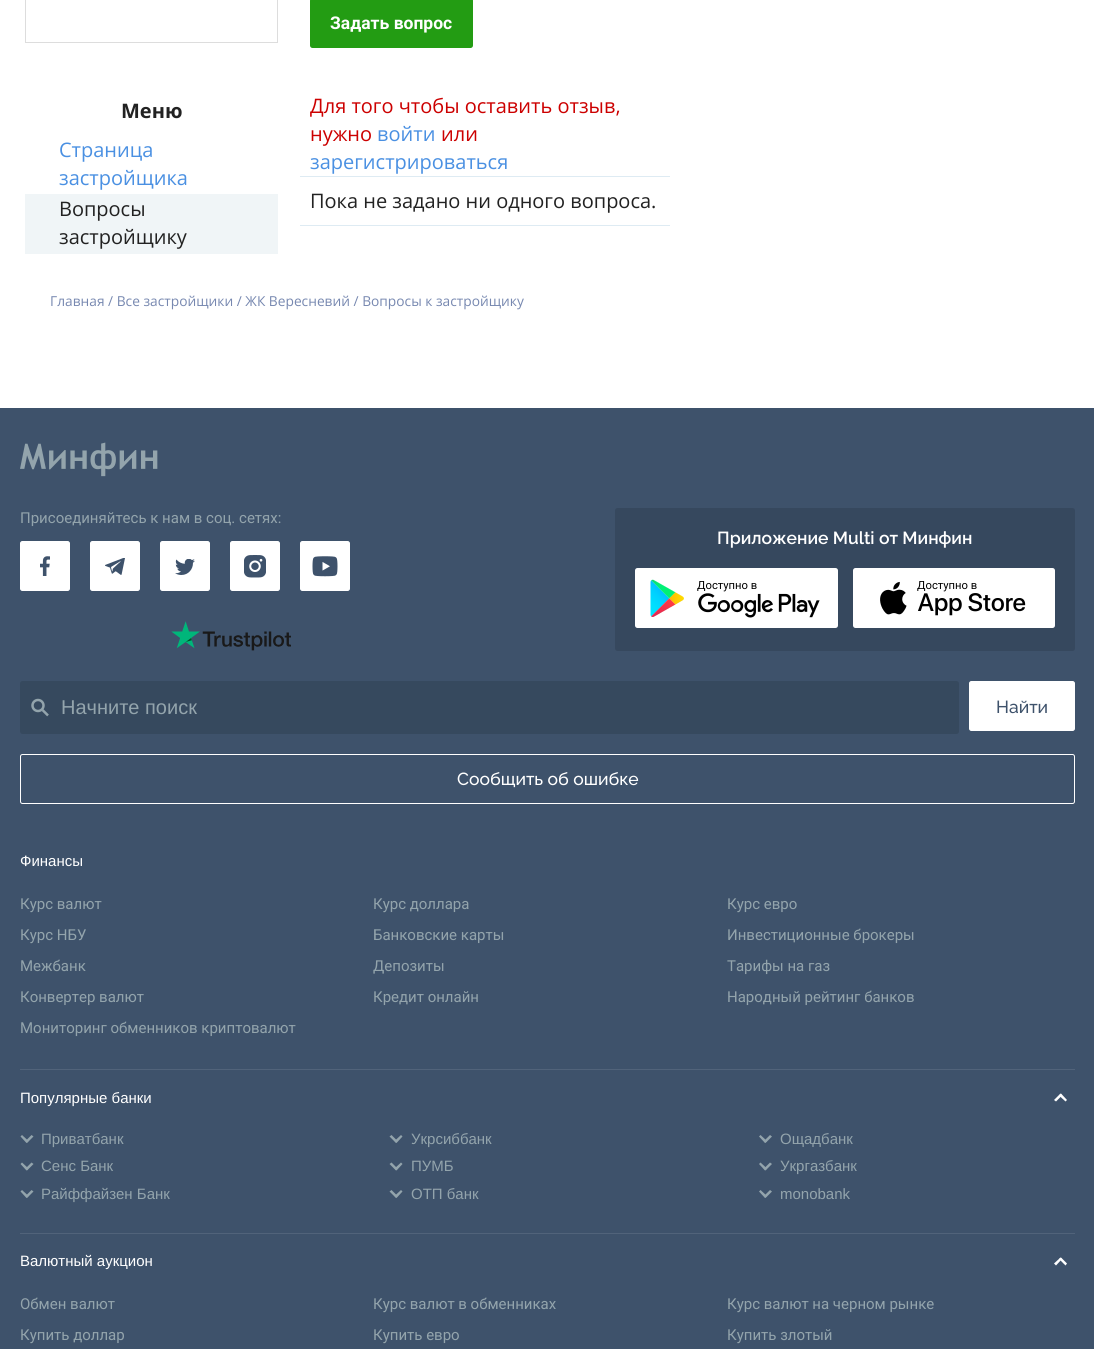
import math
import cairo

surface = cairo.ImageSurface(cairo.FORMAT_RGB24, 1094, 1349)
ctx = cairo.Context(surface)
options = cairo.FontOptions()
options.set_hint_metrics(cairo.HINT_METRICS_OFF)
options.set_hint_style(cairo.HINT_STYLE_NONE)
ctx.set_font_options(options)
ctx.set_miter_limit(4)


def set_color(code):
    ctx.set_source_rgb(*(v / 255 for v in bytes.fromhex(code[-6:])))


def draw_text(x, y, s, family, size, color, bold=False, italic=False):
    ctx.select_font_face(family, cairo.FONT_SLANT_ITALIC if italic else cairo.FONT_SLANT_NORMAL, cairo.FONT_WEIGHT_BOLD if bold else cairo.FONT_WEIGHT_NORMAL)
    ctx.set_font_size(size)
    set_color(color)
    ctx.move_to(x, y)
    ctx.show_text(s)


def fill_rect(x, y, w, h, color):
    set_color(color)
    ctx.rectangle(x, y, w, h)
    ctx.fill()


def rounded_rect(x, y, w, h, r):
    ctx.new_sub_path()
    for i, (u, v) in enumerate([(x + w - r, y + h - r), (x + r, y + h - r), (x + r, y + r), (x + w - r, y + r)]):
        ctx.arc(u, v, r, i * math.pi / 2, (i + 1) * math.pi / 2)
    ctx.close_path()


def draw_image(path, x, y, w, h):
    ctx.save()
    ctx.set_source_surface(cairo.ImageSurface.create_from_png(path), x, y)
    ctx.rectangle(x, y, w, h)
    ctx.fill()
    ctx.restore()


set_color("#ffffff")
ctx.paint()
ctx.rectangle(25.5, -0.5, 252, 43)
set_color("#dddddd")
ctx.set_line_width(1)
ctx.stroke()
draw_text(121, 118, "Меню", "Open Sans", 20, "#222222", bold=True)
draw_text(59, 157, "Страница", "Open Sans", 20, "#4a90e2")
draw_text(59, 185, "застройщика", "Open Sans", 20, "#4a90e2")
fill_rect(25, 194, 253, 60, "#f0f5f7")
draw_text(59, 216, "Вопросы", "Open Sans", 20, "#222222")
draw_text(59, 244, "застройщику", "Open Sans", 20, "#222222")
set_color("#239c13")
rounded_rect(310, -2, 163, 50, 2.5)
ctx.fill()
draw_text(330, 29, "Задать вопрос", "Roboto", 17.5, "#ffffff", bold=True)
draw_text(310, 113, "Для того чтобы оставить отзыв,", "Open Sans", 20, "#cc0000")
draw_text(310, 141, "нужно", "Open Sans", 20, "#cc0000")
draw_text(377, 141, "войти", "Open Sans", 20, "#4a90e2")
draw_text(441, 141, "или", "Open Sans", 20, "#cc0000")
draw_text(310, 169, "зарегистрироваться", "Open Sans", 20, "#4a90e2")
fill_rect(300, 176, 370, 1, "#deebf3")
draw_text(310, 208, "Пока не задано ни одного вопроса.", "Open Sans", 20, "#222222")
fill_rect(300, 225, 370, 1, "#deebf3")
draw_text(50, 306, "Главная / Все застройщики / ЖК Вересневий / Вопросы к застройщику", "Open Sans", 13.75, "#7788b0")
fill_rect(0, 408, 1094, 941, "#3e526b")
draw_image("assets/img1.png", 20, 442, 138, 35)
draw_text(20, 523, "Присоединяйтесь к нам в соц. сетях:", "Roboto", 15, "#93a4ac")
set_color("#ffffff")
rounded_rect(20.5, 541.5, 49, 49, 2)
ctx.fill_preserve()
ctx.stroke()
draw_image("assets/img2.png", 40, 556, 10, 20)
rounded_rect(90.5, 541.5, 49, 49, 2)
ctx.fill_preserve()
ctx.stroke()
draw_image("assets/img3.png", 105, 558, 20, 17)
rounded_rect(160.5, 541.5, 49, 49, 2)
ctx.fill_preserve()
ctx.stroke()
draw_image("assets/img4.png", 175, 559, 20, 16)
rounded_rect(230.5, 541.5, 49, 49, 2)
ctx.fill_preserve()
ctx.stroke()
draw_image("assets/img5.png", 244, 555, 22, 23)
rounded_rect(300.5, 541.5, 49, 49, 2)
ctx.fill_preserve()
ctx.stroke()
draw_image("assets/img6.png", 312, 556, 26, 21)
draw_image("assets/img7.png", 171, 621, 120, 30)
set_color("#36485e")
rounded_rect(615, 508, 460, 143, 2.5)
ctx.fill()
draw_text(717, 544, "Приложение Multi от Минфин", "Raleway SemiBold", 17.5, "#ffffff")
rounded_rect(635, 568, 203, 60, 2.5)
ctx.fill()
draw_image("assets/img8.png", 650, 579, 34, 38)
draw_text(697, 589, "Доступно в", "Roboto", 11.25, "#000000")
draw_image("assets/img9.png", 698, 593, 122, 25)
set_color("#ffffff")
rounded_rect(853, 568, 202, 60, 2.5)
ctx.fill()
draw_image("assets/img10.png", 880, 581, 27, 34)
draw_text(917, 589, "Доступно в", "Roboto", 11.25, "#000000")
draw_image("assets/img11.png", 918, 593, 108, 23)
set_color("#36495e")
rounded_rect(20, 681, 939, 53, 2.5)
ctx.fill()
ctx.arc(38, 705.5, 5.5, 0, 2 * math.pi)
set_color("#93a4ac")
ctx.set_line_width(2.5)
ctx.stroke()
ctx.new_path()
ctx.move_to(42.5, 710)
ctx.line_to(48, 715.5)
ctx.stroke()
draw_text(61, 714, "Начните поиск", "Liberation Sans", 20, "#93a4ac")
set_color("#ffffff")
rounded_rect(969.5, 681.5, 105, 49, 2)
ctx.fill_preserve()
ctx.set_line_width(1)
ctx.stroke()
draw_text(996, 713, "Найти", "Raleway Medium", 17.5, "#3e526b")
rounded_rect(20.5, 754.5, 1054, 49, 2)
set_color("#ffffff")
ctx.stroke()
draw_text(457, 785, "Сообщить об ошибке", "Raleway Medium", 17.5, "#ffffff")
draw_text(20, 866, "Финансы", "Liberation Sans", 15, "#ffffff")
draw_text(20, 909, "Курс валют", "Roboto", 15, "#93a4ac")
draw_text(373, 909, "Курс доллара", "Roboto", 15, "#93a4ac")
draw_text(727, 909, "Курс евро", "Roboto", 15, "#93a4ac")
draw_text(20, 940, "Курс НБУ", "Roboto", 15, "#93a4ac")
draw_text(373, 940, "Банковские карты", "Roboto", 15, "#93a4ac")
draw_text(727, 940, "Инвестиционные брокеры", "Roboto", 15, "#93a4ac")
draw_text(20, 971, "Межбанк", "Roboto", 15, "#93a4ac")
draw_text(373, 971, "Депозиты", "Roboto", 15, "#93a4ac")
draw_text(727, 971, "Тарифы на газ", "Roboto", 15, "#93a4ac")
draw_text(20, 1002, "Конвертер валют", "Roboto", 15, "#93a4ac")
draw_text(373, 1002, "Кредит онлайн", "Roboto", 15, "#93a4ac")
draw_text(727, 1002, "Народный рейтинг банков", "Roboto", 15, "#93a4ac")
draw_text(20, 1033, "Мониторинг обменников криптовалют", "Roboto", 15, "#93a4ac")
fill_rect(20, 1069, 1055, 1, "#51637a")
draw_text(20, 1103, "Популярные банки", "Liberation Sans", 15, "#ffffff")
ctx.new_path()
ctx.move_to(1061, 1093.5)
ctx.line_to(1067, 1100)
ctx.line_to(1065.5, 1101.5)
ctx.line_to(1059, 1095.5)
ctx.close_path()
ctx.fill()
ctx.new_path()
ctx.move_to(1054, 1100)
ctx.line_to(1060.5, 1093.5)
ctx.line_to(1062, 1095.5)
ctx.line_to(1056, 1101.5)
ctx.close_path()
ctx.fill()
set_color("#93a4ac")
ctx.new_path()
ctx.move_to(25.5, 1141)
ctx.line_to(31.5, 1135)
ctx.line_to(33.5, 1136.5)
ctx.line_to(27, 1143)
ctx.close_path()
ctx.fill()
ctx.new_path()
ctx.move_to(22, 1135)
ctx.line_to(28.5, 1141)
ctx.line_to(26.5, 1143)
ctx.line_to(20.5, 1136.5)
ctx.close_path()
ctx.fill()
draw_text(41, 1144, "Приватбанк", "Liberation Sans", 15, "#93a4ac")
ctx.new_path()
ctx.move_to(394.5, 1141)
ctx.line_to(401, 1135)
ctx.line_to(402.5, 1136.5)
ctx.line_to(396.5, 1143)
ctx.close_path()
ctx.fill()
ctx.new_path()
ctx.move_to(391.5, 1135)
ctx.line_to(397.5, 1141)
ctx.line_to(396, 1143)
ctx.line_to(389.5, 1136.5)
ctx.close_path()
ctx.fill()
draw_text(411, 1144, "Укрсиббанк", "Liberation Sans", 15, "#93a4ac")
ctx.new_path()
ctx.move_to(764, 1141)
ctx.line_to(770, 1135)
ctx.line_to(772, 1136.5)
ctx.line_to(765.5, 1143)
ctx.close_path()
ctx.fill()
ctx.new_path()
ctx.move_to(760.5, 1135)
ctx.line_to(767, 1141)
ctx.line_to(765, 1143)
ctx.line_to(759, 1136.5)
ctx.close_path()
ctx.fill()
draw_text(780, 1144, "Ощадбанк", "Liberation Sans", 15, "#93a4ac")
ctx.new_path()
ctx.move_to(25.5, 1168.5)
ctx.line_to(31.5, 1162.5)
ctx.line_to(33.5, 1164)
ctx.line_to(27, 1170.5)
ctx.close_path()
ctx.fill()
ctx.new_path()
ctx.move_to(22, 1162.5)
ctx.line_to(28.5, 1168.5)
ctx.line_to(26.5, 1170.5)
ctx.line_to(20.5, 1164)
ctx.close_path()
ctx.fill()
draw_text(41, 1171, "Сенс Банк", "Liberation Sans", 15, "#93a4ac")
ctx.new_path()
ctx.move_to(394.5, 1168.5)
ctx.line_to(401, 1162.5)
ctx.line_to(402.5, 1164)
ctx.line_to(396.5, 1170.5)
ctx.close_path()
ctx.fill()
ctx.new_path()
ctx.move_to(391.5, 1162.5)
ctx.line_to(397.5, 1168.5)
ctx.line_to(396, 1170.5)
ctx.line_to(389.5, 1164)
ctx.close_path()
ctx.fill()
draw_text(411, 1171, "ПУМБ", "Liberation Sans", 15, "#93a4ac")
ctx.new_path()
ctx.move_to(764, 1168.5)
ctx.line_to(770, 1162.5)
ctx.line_to(772, 1164)
ctx.line_to(765.5, 1170.5)
ctx.close_path()
ctx.fill()
ctx.new_path()
ctx.move_to(760.5, 1162.5)
ctx.line_to(767, 1168.5)
ctx.line_to(765, 1170.5)
ctx.line_to(759, 1164)
ctx.close_path()
ctx.fill()
draw_text(780, 1171, "Укргазбанк", "Liberation Sans", 15, "#93a4ac")
ctx.new_path()
ctx.move_to(25.5, 1196)
ctx.line_to(31.5, 1190)
ctx.line_to(33.5, 1191.5)
ctx.line_to(27, 1198)
ctx.close_path()
ctx.fill()
ctx.new_path()
ctx.move_to(22, 1190)
ctx.line_to(28.5, 1196)
ctx.line_to(26.5, 1198)
ctx.line_to(20.5, 1191.5)
ctx.close_path()
ctx.fill()
draw_text(41, 1199, "Райффайзен Банк", "Liberation Sans", 15, "#93a4ac")
ctx.new_path()
ctx.move_to(394.5, 1196)
ctx.line_to(401, 1190)
ctx.line_to(402.5, 1191.5)
ctx.line_to(396.5, 1198)
ctx.close_path()
ctx.fill()
ctx.new_path()
ctx.move_to(391.5, 1190)
ctx.line_to(397.5, 1196)
ctx.line_to(396, 1198)
ctx.line_to(389.5, 1191.5)
ctx.close_path()
ctx.fill()
draw_text(411, 1199, "ОТП банк", "Liberation Sans", 15, "#93a4ac")
ctx.new_path()
ctx.move_to(764, 1196)
ctx.line_to(770, 1190)
ctx.line_to(772, 1191.5)
ctx.line_to(765.5, 1198)
ctx.close_path()
ctx.fill()
ctx.new_path()
ctx.move_to(760.5, 1190)
ctx.line_to(767, 1196)
ctx.line_to(765, 1198)
ctx.line_to(759, 1191.5)
ctx.close_path()
ctx.fill()
draw_text(780, 1199, "monobank", "Liberation Sans", 15, "#93a4ac")
fill_rect(20, 1233, 1055, 1, "#51637a")
draw_text(20, 1266, "Валютный аукцион", "Liberation Sans", 15, "#ffffff")
ctx.new_path()
ctx.move_to(1061, 1257.5)
ctx.line_to(1067, 1263.5)
ctx.line_to(1065.5, 1265.5)
ctx.line_to(1059, 1259)
ctx.close_path()
ctx.fill()
ctx.new_path()
ctx.move_to(1054, 1263.5)
ctx.line_to(1060.5, 1257.5)
ctx.line_to(1062, 1259)
ctx.line_to(1056, 1265.5)
ctx.close_path()
ctx.fill()
draw_text(20, 1309, "Обмен валют", "Roboto", 15, "#93a4ac")
draw_text(373, 1309, "Курс валют в обменниках", "Roboto", 15, "#93a4ac")
draw_text(727, 1309, "Курс валют на черном рынке", "Roboto", 15, "#93a4ac")
draw_text(20, 1340, "Купить доллар", "Roboto", 15, "#93a4ac")
draw_text(373, 1340, "Купить евро", "Roboto", 15, "#93a4ac")
draw_text(727, 1340, "Купить злотый", "Roboto", 15, "#93a4ac")
surface.write_to_png("output.png")
